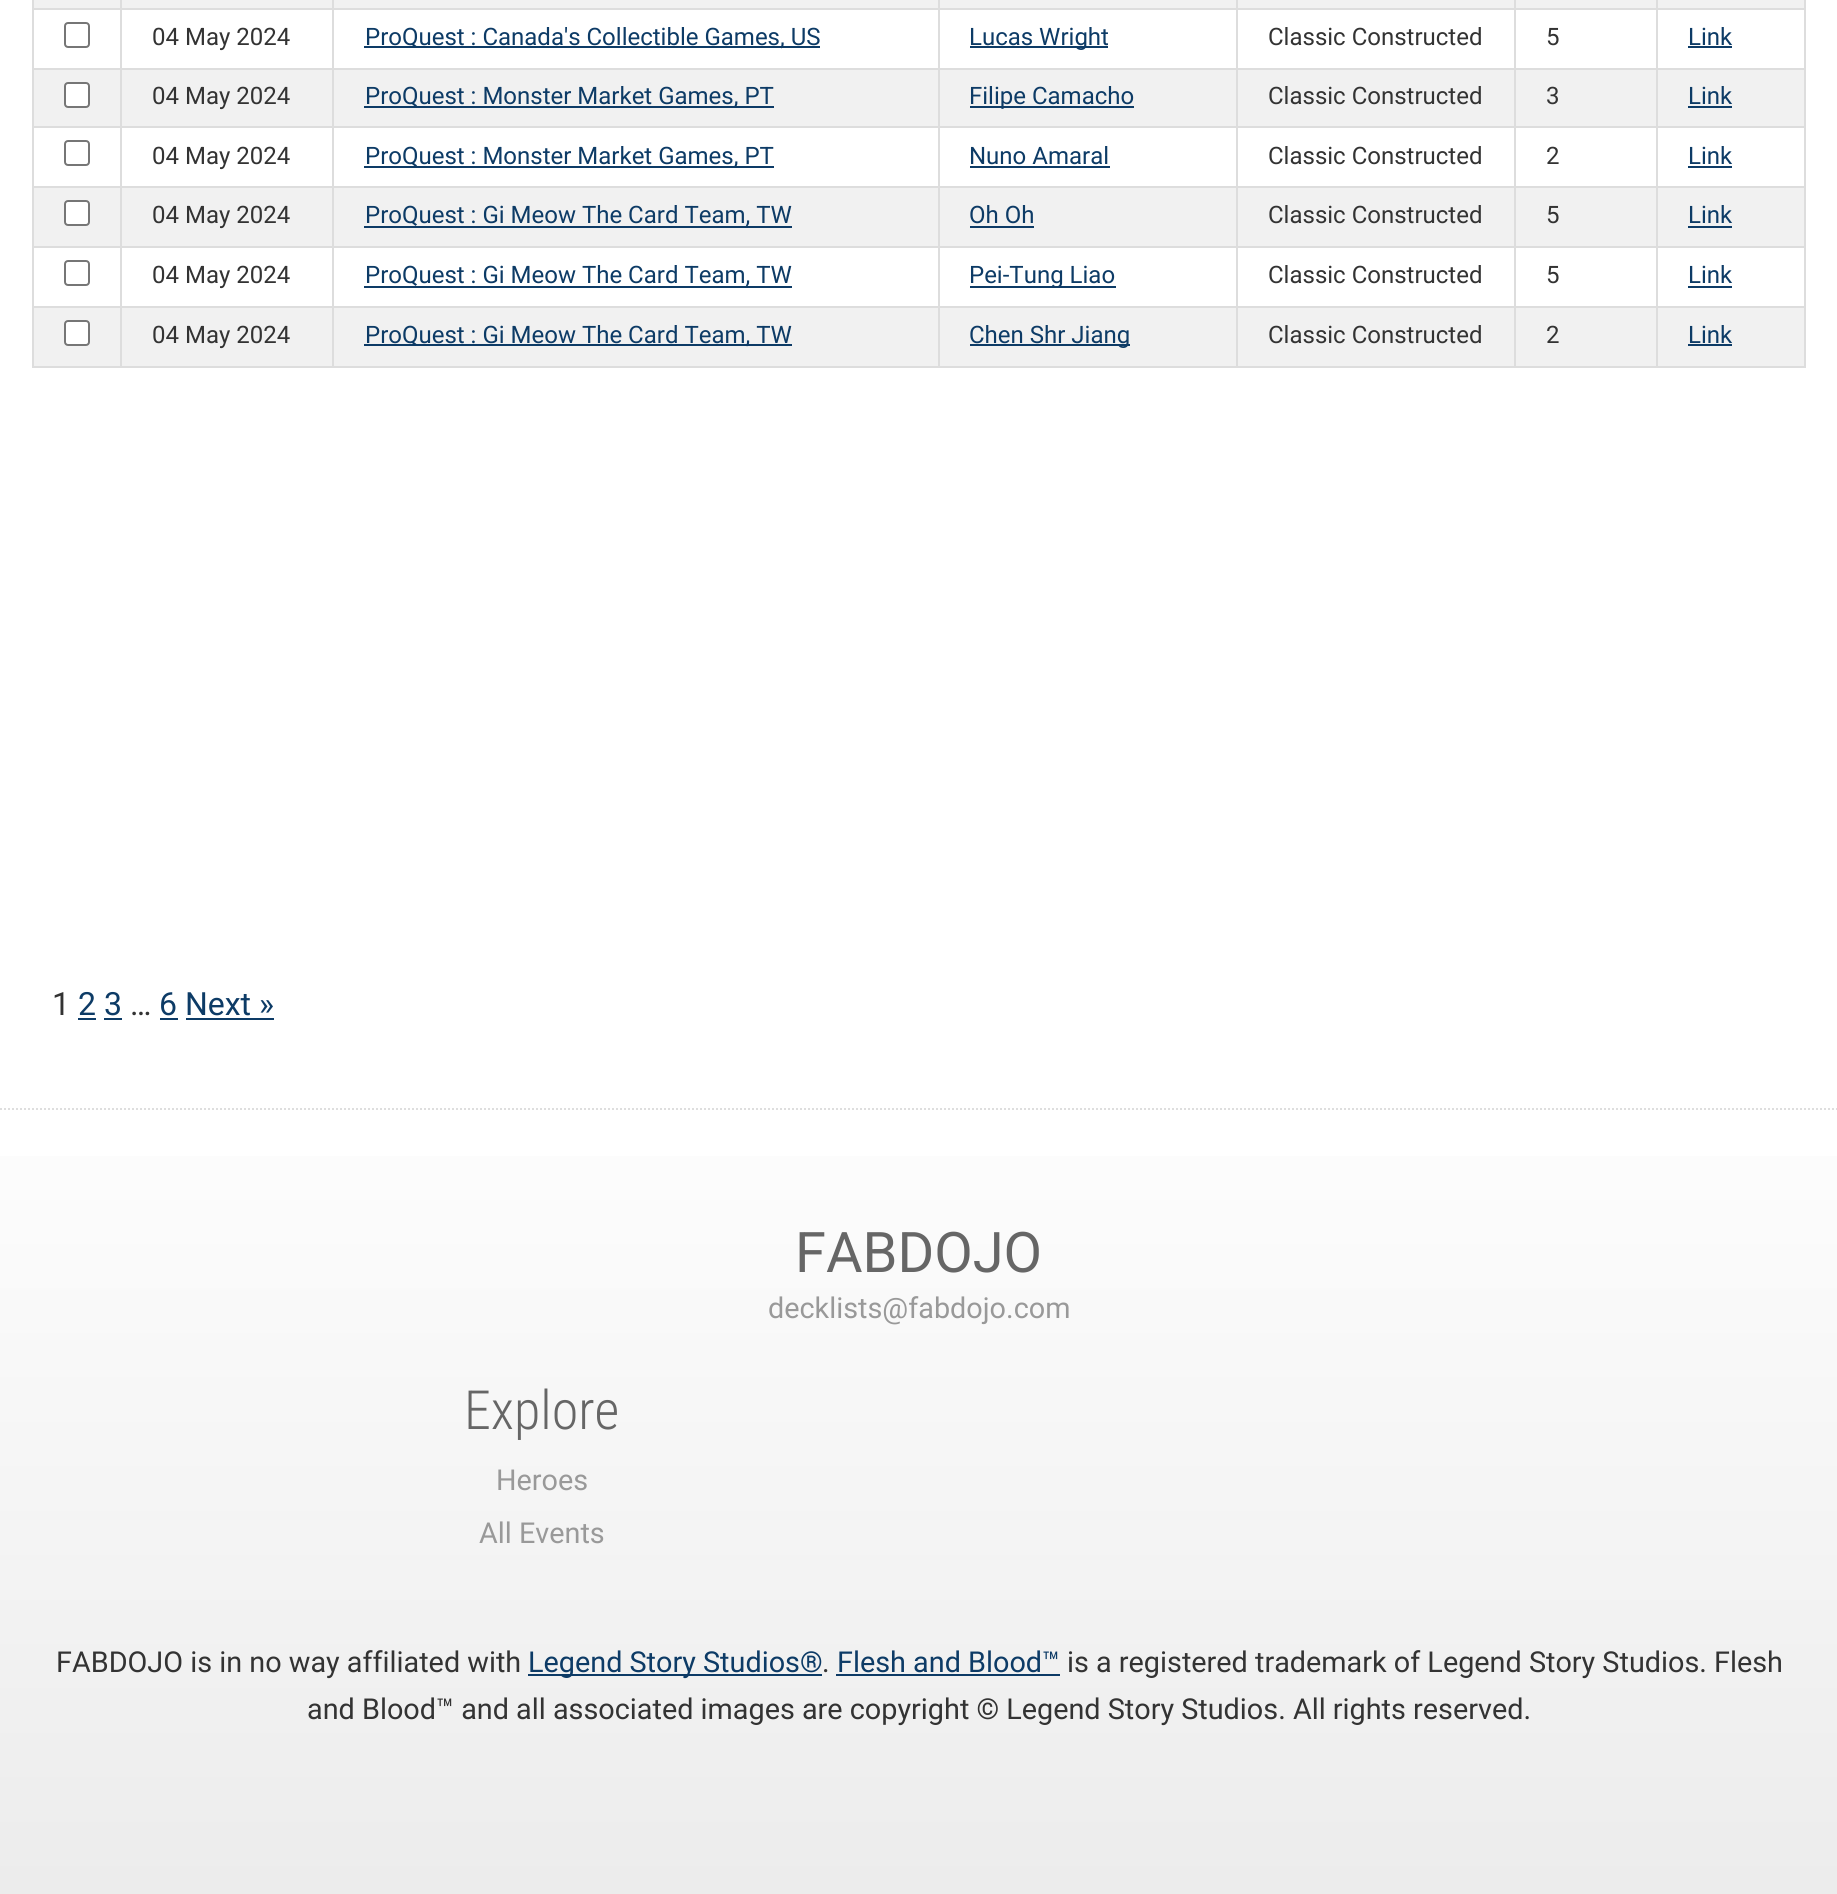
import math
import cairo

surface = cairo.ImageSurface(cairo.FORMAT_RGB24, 1837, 1894)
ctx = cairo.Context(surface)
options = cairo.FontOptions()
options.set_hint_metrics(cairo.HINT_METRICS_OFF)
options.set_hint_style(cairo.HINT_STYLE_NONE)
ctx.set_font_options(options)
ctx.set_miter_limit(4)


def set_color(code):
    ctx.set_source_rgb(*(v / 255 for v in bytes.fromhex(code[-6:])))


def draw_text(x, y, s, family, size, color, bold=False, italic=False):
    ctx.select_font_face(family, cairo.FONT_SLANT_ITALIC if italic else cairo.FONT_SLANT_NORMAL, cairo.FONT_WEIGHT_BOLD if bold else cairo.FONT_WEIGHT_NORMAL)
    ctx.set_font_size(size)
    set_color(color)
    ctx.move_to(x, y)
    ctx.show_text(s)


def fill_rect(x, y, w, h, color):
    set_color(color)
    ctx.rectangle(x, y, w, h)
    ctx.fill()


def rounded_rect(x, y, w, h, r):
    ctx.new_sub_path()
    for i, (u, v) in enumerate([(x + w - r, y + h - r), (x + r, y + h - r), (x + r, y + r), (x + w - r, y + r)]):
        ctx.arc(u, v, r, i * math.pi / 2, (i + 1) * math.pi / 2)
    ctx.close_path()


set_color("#ffffff")
ctx.paint()
fill_rect(34, 0, 1772, 8, "#f1f1f1")
fill_rect(1656, 8, 150, 2, "#dddddd")
fill_rect(1656, 68, 150, 2, "#dddddd")
fill_rect(1656, 126, 150, 2, "#dddddd")
fill_rect(1656, 186, 150, 2, "#dddddd")
fill_rect(1656, 246, 150, 2, "#dddddd")
fill_rect(1656, 306, 150, 2, "#dddddd")
fill_rect(1804, 306, 2, 62, "#dddddd")
fill_rect(1656, 366, 150, 2, "#dddddd")
fill_rect(1656, 306, 2, 62, "#dddddd")
fill_rect(1514, 306, 144, 2, "#dddddd")
fill_rect(1656, 246, 2, 62, "#dddddd")
fill_rect(1514, 246, 144, 2, "#dddddd")
fill_rect(1656, 186, 2, 62, "#dddddd")
fill_rect(1514, 186, 144, 2, "#dddddd")
fill_rect(1656, 126, 2, 62, "#dddddd")
fill_rect(1514, 126, 144, 2, "#dddddd")
fill_rect(1656, 68, 2, 60, "#dddddd")
fill_rect(1514, 68, 144, 2, "#dddddd")
fill_rect(1656, 8, 2, 62, "#dddddd")
fill_rect(1514, 8, 144, 2, "#dddddd")
fill_rect(1514, 366, 144, 2, "#dddddd")
fill_rect(1514, 306, 2, 62, "#dddddd")
fill_rect(1236, 306, 280, 2, "#dddddd")
fill_rect(1514, 246, 2, 62, "#dddddd")
fill_rect(1236, 246, 280, 2, "#dddddd")
fill_rect(1514, 186, 2, 62, "#dddddd")
fill_rect(1236, 186, 280, 2, "#dddddd")
fill_rect(1514, 126, 2, 62, "#dddddd")
fill_rect(1236, 126, 280, 2, "#dddddd")
fill_rect(1514, 68, 2, 60, "#dddddd")
fill_rect(1236, 68, 280, 2, "#dddddd")
fill_rect(1514, 8, 2, 62, "#dddddd")
fill_rect(1236, 8, 280, 2, "#dddddd")
fill_rect(1236, 366, 280, 2, "#dddddd")
fill_rect(1236, 306, 2, 62, "#dddddd")
fill_rect(938, 306, 300, 2, "#dddddd")
fill_rect(1236, 246, 2, 62, "#dddddd")
fill_rect(938, 246, 300, 2, "#dddddd")
fill_rect(1236, 186, 2, 62, "#dddddd")
fill_rect(938, 186, 300, 2, "#dddddd")
fill_rect(1236, 126, 2, 62, "#dddddd")
fill_rect(938, 126, 300, 2, "#dddddd")
fill_rect(1236, 68, 2, 60, "#dddddd")
fill_rect(938, 68, 300, 2, "#dddddd")
fill_rect(1236, 8, 2, 62, "#dddddd")
fill_rect(938, 8, 300, 2, "#dddddd")
fill_rect(938, 366, 300, 2, "#dddddd")
fill_rect(938, 306, 2, 62, "#dddddd")
fill_rect(332, 306, 608, 2, "#dddddd")
fill_rect(938, 246, 2, 62, "#dddddd")
fill_rect(332, 246, 608, 2, "#dddddd")
fill_rect(938, 186, 2, 62, "#dddddd")
fill_rect(332, 186, 608, 2, "#dddddd")
fill_rect(938, 126, 2, 62, "#dddddd")
fill_rect(332, 126, 608, 2, "#dddddd")
fill_rect(938, 68, 2, 60, "#dddddd")
fill_rect(332, 68, 608, 2, "#dddddd")
fill_rect(938, 8, 2, 62, "#dddddd")
fill_rect(332, 8, 608, 2, "#dddddd")
fill_rect(332, 366, 608, 2, "#dddddd")
fill_rect(332, 306, 2, 62, "#dddddd")
fill_rect(120, 306, 214, 2, "#dddddd")
fill_rect(332, 246, 2, 62, "#dddddd")
fill_rect(120, 246, 214, 2, "#dddddd")
fill_rect(332, 186, 2, 62, "#dddddd")
fill_rect(120, 186, 214, 2, "#dddddd")
fill_rect(332, 126, 2, 62, "#dddddd")
fill_rect(120, 126, 214, 2, "#dddddd")
fill_rect(332, 68, 2, 60, "#dddddd")
fill_rect(120, 68, 214, 2, "#dddddd")
fill_rect(332, 8, 2, 62, "#dddddd")
fill_rect(120, 8, 214, 2, "#dddddd")
fill_rect(120, 366, 214, 2, "#dddddd")
fill_rect(120, 306, 2, 62, "#dddddd")
fill_rect(32, 306, 90, 2, "#dddddd")
fill_rect(120, 246, 2, 62, "#dddddd")
fill_rect(32, 246, 90, 2, "#dddddd")
fill_rect(120, 186, 2, 62, "#dddddd")
fill_rect(32, 186, 90, 2, "#dddddd")
fill_rect(120, 126, 2, 62, "#dddddd")
fill_rect(32, 126, 90, 2, "#dddddd")
fill_rect(120, 68, 2, 60, "#dddddd")
fill_rect(32, 68, 90, 2, "#dddddd")
fill_rect(120, 8, 2, 62, "#dddddd")
fill_rect(32, 8, 90, 2, "#dddddd")
fill_rect(120, 0, 2, 10, "#dddddd")
fill_rect(332, 0, 2, 10, "#dddddd")
fill_rect(938, 0, 2, 10, "#dddddd")
fill_rect(1236, 0, 2, 10, "#dddddd")
fill_rect(1514, 0, 2, 10, "#dddddd")
fill_rect(1656, 0, 2, 10, "#dddddd")
fill_rect(32, 366, 90, 2, "#dddddd")
fill_rect(32, 306, 2, 62, "#dddddd")
fill_rect(32, 246, 2, 62, "#dddddd")
fill_rect(32, 186, 2, 62, "#dddddd")
fill_rect(32, 126, 2, 62, "#dddddd")
fill_rect(32, 68, 2, 60, "#dddddd")
fill_rect(32, 0, 2, 70, "#dddddd")
rounded_rect(65, 23, 24, 24, 3)
set_color("#767676")
ctx.stroke()
draw_text(152, 45, "04 May 2024", "Roboto", 24, "#333333")
fill_rect(364, 46, 456, 2, "#0d3b66")
draw_text(365, 45, "ProQuest : Canada's Collectible Games, US", "Roboto", 24, "#0d3b66")
fill_rect(970, 46, 138, 2, "#0d3b66")
draw_text(969, 45, "Lucas Wright", "Roboto", 24, "#0d3b66")
draw_text(1268, 45, "Classic Constructed", "Roboto", 24, "#333333")
draw_text(1546, 45, "5", "Roboto", 24, "#333333")
fill_rect(1804, 246, 2, 62, "#dddddd")
fill_rect(1804, 186, 2, 62, "#dddddd")
fill_rect(1804, 126, 2, 62, "#dddddd")
fill_rect(1804, 68, 2, 60, "#dddddd")
fill_rect(1804, 0, 2, 70, "#dddddd")
draw_text(1688, 45, "Link", "Roboto", 24, "#0d3b66")
fill_rect(1688, 46, 44, 2, "#0d3b66")
fill_rect(34, 70, 86, 56, "#f1f1f1")
set_color("#ffffff")
rounded_rect(65, 83, 24, 24, 3)
ctx.fill_preserve()
set_color("#767676")
ctx.stroke()
fill_rect(122, 70, 210, 56, "#f1f1f1")
draw_text(152, 104, "04 May 2024", "Roboto", 24, "#333333")
fill_rect(334, 70, 604, 56, "#f1f1f1")
fill_rect(364, 106, 410, 2, "#0d3b66")
draw_text(365, 104, "ProQuest : Monster Market Games, PT", "Roboto", 24, "#0d3b66")
fill_rect(940, 70, 296, 56, "#f1f1f1")
fill_rect(970, 106, 164, 2, "#0d3b66")
draw_text(969, 104, "Filipe Camacho", "Roboto", 24, "#0d3b66")
fill_rect(1238, 70, 276, 56, "#f1f1f1")
draw_text(1268, 104, "Classic Constructed", "Roboto", 24, "#333333")
fill_rect(1516, 70, 140, 56, "#f1f1f1")
draw_text(1546, 104, "3", "Roboto", 24, "#333333")
fill_rect(1658, 70, 146, 56, "#f1f1f1")
draw_text(1688, 104, "Link", "Roboto", 24, "#0d3b66")
fill_rect(1688, 106, 44, 2, "#0d3b66")
rounded_rect(65, 141, 24, 24, 3)
set_color("#767676")
ctx.stroke()
draw_text(152, 164, "04 May 2024", "Roboto", 24, "#333333")
fill_rect(364, 166, 410, 2, "#0d3b66")
draw_text(365, 164, "ProQuest : Monster Market Games, PT", "Roboto", 24, "#0d3b66")
draw_text(969, 164, "Nuno Amaral", "Roboto", 24, "#0d3b66")
fill_rect(970, 166, 140, 2, "#0d3b66")
draw_text(1268, 164, "Classic Constructed", "Roboto", 24, "#333333")
draw_text(1546, 164, "2", "Roboto", 24, "#333333")
draw_text(1688, 164, "Link", "Roboto", 24, "#0d3b66")
fill_rect(1688, 166, 44, 2, "#0d3b66")
fill_rect(34, 188, 86, 58, "#f1f1f1")
set_color("#ffffff")
rounded_rect(65, 201, 24, 24, 3)
ctx.fill_preserve()
set_color("#767676")
ctx.stroke()
fill_rect(122, 188, 210, 58, "#f1f1f1")
draw_text(152, 223, "04 May 2024", "Roboto", 24, "#333333")
fill_rect(334, 188, 604, 58, "#f1f1f1")
fill_rect(364, 226, 428, 2, "#0d3b66")
draw_text(365, 223, "ProQuest : Gi Meow The Card Team, TW", "Roboto", 24, "#0d3b66")
fill_rect(940, 188, 296, 58, "#f1f1f1")
draw_text(969, 223, "Oh Oh", "Roboto", 24, "#0d3b66")
fill_rect(970, 226, 64, 2, "#0d3b66")
fill_rect(1238, 188, 276, 58, "#f1f1f1")
draw_text(1268, 223, "Classic Constructed", "Roboto", 24, "#333333")
fill_rect(1516, 188, 140, 58, "#f1f1f1")
draw_text(1546, 223, "5", "Roboto", 24, "#333333")
fill_rect(1658, 188, 146, 58, "#f1f1f1")
draw_text(1688, 223, "Link", "Roboto", 24, "#0d3b66")
fill_rect(1688, 226, 44, 2, "#0d3b66")
rounded_rect(65, 261, 24, 24, 3)
set_color("#767676")
ctx.stroke()
draw_text(152, 283, "04 May 2024", "Roboto", 24, "#333333")
fill_rect(364, 286, 428, 2, "#0d3b66")
draw_text(365, 283, "ProQuest : Gi Meow The Card Team, TW", "Roboto", 24, "#0d3b66")
fill_rect(970, 286, 146, 2, "#0d3b66")
draw_text(969, 283, "Pei-Tung Liao", "Roboto", 24, "#0d3b66")
draw_text(1268, 283, "Classic Constructed", "Roboto", 24, "#333333")
draw_text(1546, 283, "5", "Roboto", 24, "#333333")
draw_text(1688, 283, "Link", "Roboto", 24, "#0d3b66")
fill_rect(1688, 286, 44, 2, "#0d3b66")
fill_rect(34, 308, 86, 58, "#f1f1f1")
set_color("#ffffff")
rounded_rect(65, 321, 24, 24, 3)
ctx.fill_preserve()
set_color("#767676")
ctx.stroke()
fill_rect(122, 308, 210, 58, "#f1f1f1")
draw_text(152, 343, "04 May 2024", "Roboto", 24, "#333333")
fill_rect(334, 308, 604, 58, "#f1f1f1")
fill_rect(364, 344, 428, 2, "#0d3b66")
draw_text(365, 343, "ProQuest : Gi Meow The Card Team, TW", "Roboto", 24, "#0d3b66")
fill_rect(940, 308, 296, 58, "#f1f1f1")
fill_rect(970, 344, 160, 2, "#0d3b66")
draw_text(969, 343, "Chen Shr Jiang", "Roboto", 24, "#0d3b66")
fill_rect(1238, 308, 276, 58, "#f1f1f1")
draw_text(1268, 343, "Classic Constructed", "Roboto", 24, "#333333")
fill_rect(1516, 308, 140, 58, "#f1f1f1")
draw_text(1546, 343, "2", "Roboto", 24, "#333333")
fill_rect(1658, 308, 146, 58, "#f1f1f1")
draw_text(1688, 343, "Link", "Roboto", 24, "#0d3b66")
fill_rect(1688, 344, 44, 2, "#0d3b66")
draw_text(52, 1015, "1", "Roboto", 32, "#333333")
draw_text(78, 1015, "2 3", "Roboto", 32, "#0d3b66")
fill_rect(78, 1018, 18, 2, "#0d3b66")
draw_text(130, 1015, "…", "Roboto", 32, "#333333")
draw_text(159, 1015, "6 Next »", "Roboto", 32, "#0d3b66")
fill_rect(160, 1018, 18, 2, "#0d3b66")
fill_rect(104, 1018, 18, 2, "#0d3b66")
fill_rect(186, 1018, 88, 2, "#0d3b66")
gradient = cairo.LinearGradient(919, 1044, 919, 1894)
gradient.add_color_stop_rgba(0, 1, 1, 1, 1)
gradient.add_color_stop_rgba(1, 0.925, 0.925, 0.925, 1)
ctx.set_source(gradient)
ctx.rectangle(0, 1156, 1837, 738)
ctx.fill()
ctx.new_path()
ctx.move_to(0, 1109)
ctx.line_to(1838, 1109)
set_color("#dedede")
ctx.set_dash([2, 2])
ctx.stroke()
draw_text(795, 1272, "FABDOJO", "Roboto", 56, "#666666")
draw_text(768, 1318, "decklists@fabdojo.com", "Roboto", 28.8, "#999999")
draw_text(464, 1429, "Explore", "Roboto Condensed Light", 54, "#666666")
draw_text(496, 1490, "Heroes", "Roboto", 28.8, "#999999")
draw_text(479, 1543, "All Events", "Roboto", 28.8, "#999999")
draw_text(56, 1672, "FABDOJO is in no way affiliated with", "Roboto", 28.8, "#333333")
fill_rect(528, 1674, 294, 2, "#0d3b66")
draw_text(528, 1672, "Legend Story Studios®", "Roboto", 28.8, "#0d3b66")
draw_text(822, 1672, ".", "Roboto", 28.8, "#333333")
draw_text(837, 1672, "Flesh and Blood™", "Roboto", 28.8, "#0d3b66")
fill_rect(836, 1674, 224, 2, "#0d3b66")
draw_text(1067, 1672, "is a registered trademark of Legend Story Studios. Flesh", "Roboto", 28.8, "#333333")
draw_text(307, 1719, "and Blood™ and all associated images are copyright © Legend Story Studios. All rights reserved.", "Roboto", 28.8, "#333333")
surface.write_to_png("output.png")
